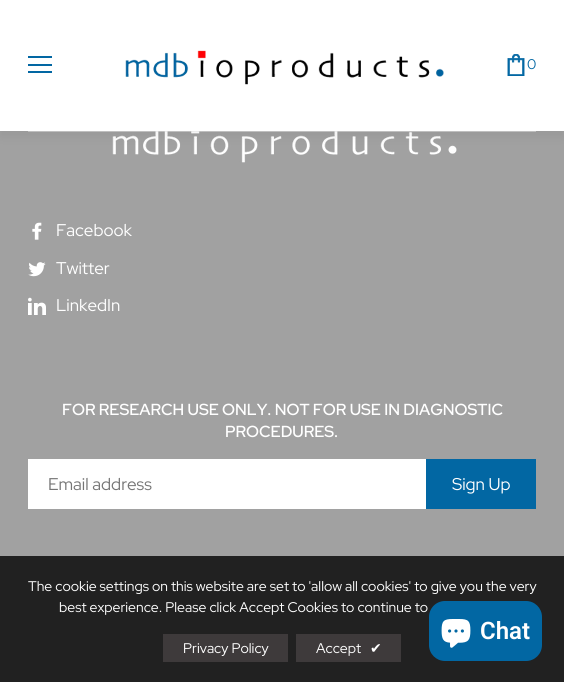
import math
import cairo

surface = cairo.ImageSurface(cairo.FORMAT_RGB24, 564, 682)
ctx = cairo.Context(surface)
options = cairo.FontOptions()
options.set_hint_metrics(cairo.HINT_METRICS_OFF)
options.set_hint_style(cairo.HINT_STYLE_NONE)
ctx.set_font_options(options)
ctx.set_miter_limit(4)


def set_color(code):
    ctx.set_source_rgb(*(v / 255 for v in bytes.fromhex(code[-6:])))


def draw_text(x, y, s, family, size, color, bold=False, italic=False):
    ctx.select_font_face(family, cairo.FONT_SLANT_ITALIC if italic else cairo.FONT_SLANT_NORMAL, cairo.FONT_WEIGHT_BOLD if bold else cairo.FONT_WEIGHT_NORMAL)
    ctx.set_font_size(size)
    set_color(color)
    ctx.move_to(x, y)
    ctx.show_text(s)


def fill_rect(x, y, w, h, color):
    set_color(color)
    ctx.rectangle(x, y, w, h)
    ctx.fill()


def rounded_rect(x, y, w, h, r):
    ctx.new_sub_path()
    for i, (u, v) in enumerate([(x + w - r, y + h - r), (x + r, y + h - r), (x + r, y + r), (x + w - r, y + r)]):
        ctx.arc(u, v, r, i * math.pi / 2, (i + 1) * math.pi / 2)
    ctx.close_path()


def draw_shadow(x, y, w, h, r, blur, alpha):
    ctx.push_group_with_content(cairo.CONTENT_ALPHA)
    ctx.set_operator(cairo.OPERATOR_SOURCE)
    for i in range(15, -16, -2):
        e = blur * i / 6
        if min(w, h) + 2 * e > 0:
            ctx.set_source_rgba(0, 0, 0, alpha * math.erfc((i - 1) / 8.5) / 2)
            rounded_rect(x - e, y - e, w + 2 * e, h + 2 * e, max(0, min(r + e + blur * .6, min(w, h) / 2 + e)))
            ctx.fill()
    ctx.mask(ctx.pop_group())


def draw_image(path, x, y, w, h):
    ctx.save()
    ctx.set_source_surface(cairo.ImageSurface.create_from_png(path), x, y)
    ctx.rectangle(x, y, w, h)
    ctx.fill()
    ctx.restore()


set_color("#a1a1a1")
ctx.paint()
draw_image("assets/img3.png", 112, 131, 345, 32)
set_color("#000000")
draw_shadow(0, 5, 564, 132, 0, 5, 0.05)
fill_rect(0, 0, 564, 131, "#ffffff")
fill_rect(28, 56, 24, 2, "#0267a3")
fill_rect(28, 64, 24, 2, "#0267a3")
fill_rect(28, 71, 24, 2, "#0267a3")
draw_image("assets/img1.png", 125, 50, 319, 35)
draw_image("assets/img2.png", 507, 54, 18, 22)
draw_text(527, 69, "0", "Red Hat Display", 14, "#0267a3")
ctx.set_source_rgba(0.894, 0.894, 0.894, 0.5)
ctx.rectangle(28, 131, 508, 1)
ctx.fill()
draw_image("assets/img4.png", 32, 222, 10, 18)
draw_text(56, 236, "Facebook", "Red Hat Display", 17, "#ffffff")
draw_image("assets/img5.png", 28, 262, 18, 15)
draw_text(56, 274, "Twitter", "Red Hat Display", 17, "#ffffff")
draw_image("assets/img6.png", 28, 297, 18, 18)
draw_text(56, 311, "LinkedIn", "Red Hat Display", 17, "#ffffff")
draw_text(62, 415, "FOR RESEARCH USE ONLY. NOT FOR USE IN DIAGNOSTIC", "Red Hat Display SemiBold", 16, "#ffffff")
draw_text(225, 437, "PROCEDURES.", "Red Hat Display SemiBold", 16, "#ffffff")
fill_rect(28, 459, 398, 50, "#ffffff")
draw_text(48, 490, "Email address", "Red Hat Display", 17, "#757575")
fill_rect(426, 459, 110, 50, "#0267a3")
draw_text(452, 490, "Sign Up", "Red Hat Display", 17, "#ffffff")
fill_rect(0, 556, 564, 126, "#212121")
draw_text(28, 591, "The cookie settings on this website are set to 'allow all cookies' to give you the very", "Red Hat Display", 14, "#ffffff")
draw_text(59, 612, "best experience. Please click Accept Cookies to continue to", "Red Hat Display", 14, "#ffffff")
fill_rect(163, 634, 125, 28, "#3e3a3b")
draw_text(183, 653, "Privacy Policy", "Red Hat Display", 14, "#ffffff")
fill_rect(296, 634, 105, 28, "#3e3a3b")
draw_text(316, 653, "Accept", "Red Hat Display", 14, "#ffffff")
draw_text(370, 653, "✔", "DejaVu Sans", 14, "#ffffff")
set_color("#0267a3")
rounded_rect(429, 601, 113, 60, 16)
ctx.fill()
draw_image("assets/img7.png", 441, 619, 30, 29)
draw_text(480, 639, "Chat", "Roboto SemiBold", 24, "#ffffff")
surface.write_to_png("output.png")
